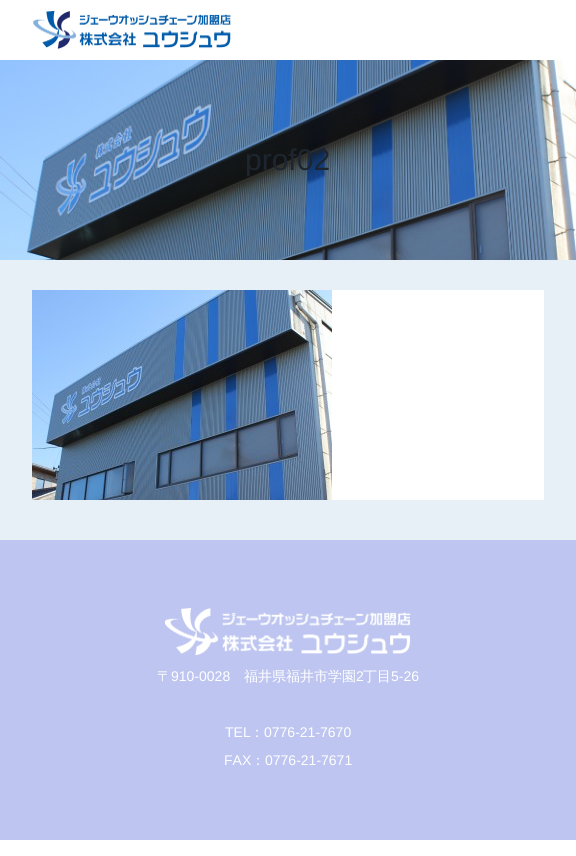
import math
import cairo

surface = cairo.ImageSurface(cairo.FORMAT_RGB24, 576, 856)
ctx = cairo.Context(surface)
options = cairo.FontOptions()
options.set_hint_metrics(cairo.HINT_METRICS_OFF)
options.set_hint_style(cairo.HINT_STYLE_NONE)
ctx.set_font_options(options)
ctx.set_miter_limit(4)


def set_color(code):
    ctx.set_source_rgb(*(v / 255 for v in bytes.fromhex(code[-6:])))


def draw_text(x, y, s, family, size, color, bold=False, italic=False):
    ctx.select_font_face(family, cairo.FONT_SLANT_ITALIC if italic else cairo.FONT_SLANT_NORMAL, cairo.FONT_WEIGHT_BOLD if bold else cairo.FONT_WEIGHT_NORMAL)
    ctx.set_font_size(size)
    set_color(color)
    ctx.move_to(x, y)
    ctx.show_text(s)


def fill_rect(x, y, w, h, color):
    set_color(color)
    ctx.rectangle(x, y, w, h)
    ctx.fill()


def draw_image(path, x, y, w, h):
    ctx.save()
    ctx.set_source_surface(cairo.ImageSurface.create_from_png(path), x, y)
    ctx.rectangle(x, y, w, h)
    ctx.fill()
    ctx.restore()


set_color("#ffffff")
ctx.paint()
draw_image("assets/img1.png", 33, 10, 198, 40)
fill_rect(0, 260, 576, 280, "#e7eff7")
draw_image("assets/img2.png", 0, 60, 576, 200)
draw_text(245, 170, "prof02", "Liberation Sans", 30, "#1d2630")
fill_rect(332, 290, 212, 210, "#ffffff")
draw_image("assets/img3.png", 32, 290, 300, 210)
fill_rect(0, 540, 576, 300, "#bdc5f0")
draw_image("assets/img4.png", 164, 608, 247, 48)
draw_text(157, 681, "〒", "WenQuanYi Zen Hei Medium", 14, "#ffffff")
draw_text(171, 681, "910-0028", "Liberation Sans", 14, "#ffffff")
draw_text(244, 681, "福井県福井市学園", "WenQuanYi Zen Hei Medium", 14, "#ffffff")
draw_text(356, 681, "2", "Liberation Sans", 14, "#ffffff")
draw_text(363, 681, "丁目", "WenQuanYi Zen Hei Medium", 14, "#ffffff")
draw_text(391, 681, "5-26", "Liberation Sans", 14, "#ffffff")
draw_text(225, 737, "TEL", "Liberation Sans", 14, "#ffffff")
draw_text(250, 737, "：", "WenQuanYi Zen Hei Medium", 14, "#ffffff")
draw_text(264, 737, "0776-21-7670", "Liberation Sans", 14, "#ffffff")
draw_text(224, 765, "FAX", "Liberation Sans", 14, "#ffffff")
draw_text(251, 765, "：", "WenQuanYi Zen Hei Medium", 14, "#ffffff")
draw_text(265, 765, "0776-21-7671", "Liberation Sans", 14, "#ffffff")
surface.write_to_png("output.png")
